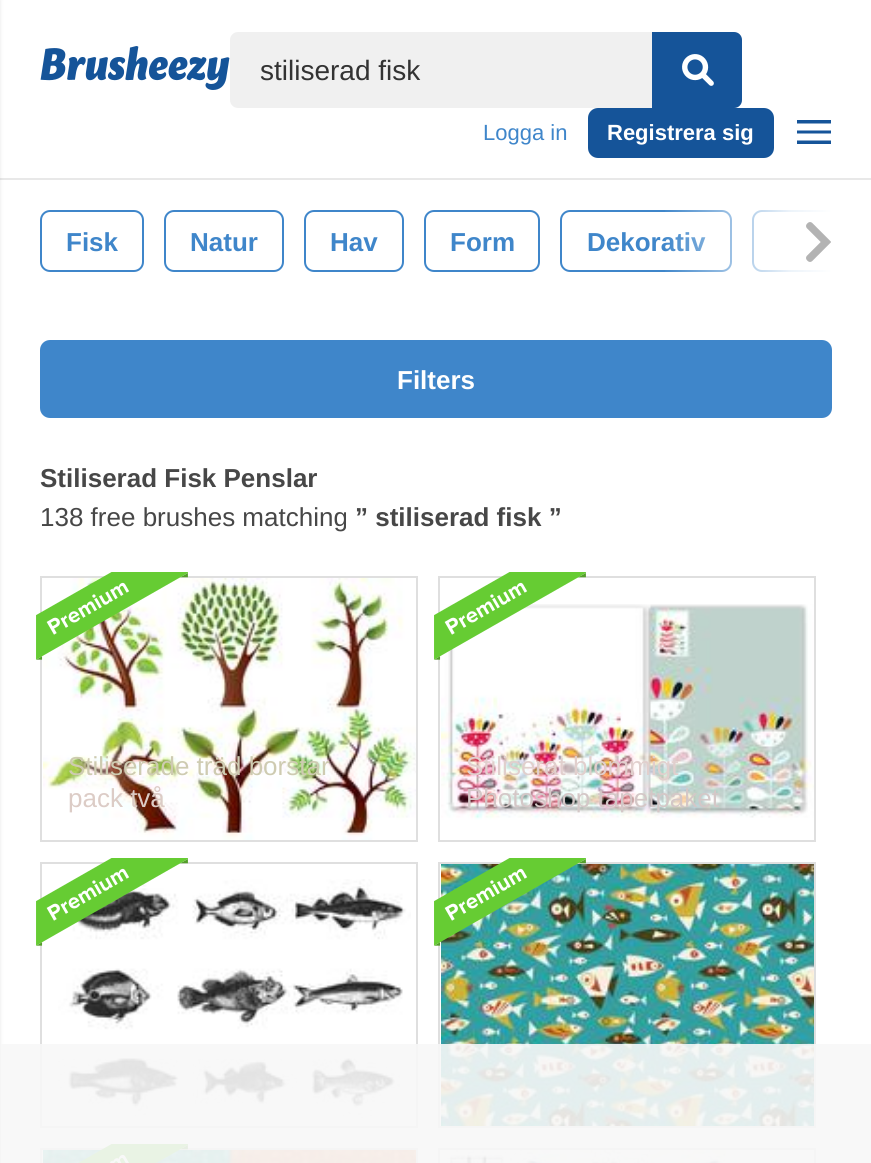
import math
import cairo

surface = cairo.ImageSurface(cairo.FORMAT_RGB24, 871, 1163)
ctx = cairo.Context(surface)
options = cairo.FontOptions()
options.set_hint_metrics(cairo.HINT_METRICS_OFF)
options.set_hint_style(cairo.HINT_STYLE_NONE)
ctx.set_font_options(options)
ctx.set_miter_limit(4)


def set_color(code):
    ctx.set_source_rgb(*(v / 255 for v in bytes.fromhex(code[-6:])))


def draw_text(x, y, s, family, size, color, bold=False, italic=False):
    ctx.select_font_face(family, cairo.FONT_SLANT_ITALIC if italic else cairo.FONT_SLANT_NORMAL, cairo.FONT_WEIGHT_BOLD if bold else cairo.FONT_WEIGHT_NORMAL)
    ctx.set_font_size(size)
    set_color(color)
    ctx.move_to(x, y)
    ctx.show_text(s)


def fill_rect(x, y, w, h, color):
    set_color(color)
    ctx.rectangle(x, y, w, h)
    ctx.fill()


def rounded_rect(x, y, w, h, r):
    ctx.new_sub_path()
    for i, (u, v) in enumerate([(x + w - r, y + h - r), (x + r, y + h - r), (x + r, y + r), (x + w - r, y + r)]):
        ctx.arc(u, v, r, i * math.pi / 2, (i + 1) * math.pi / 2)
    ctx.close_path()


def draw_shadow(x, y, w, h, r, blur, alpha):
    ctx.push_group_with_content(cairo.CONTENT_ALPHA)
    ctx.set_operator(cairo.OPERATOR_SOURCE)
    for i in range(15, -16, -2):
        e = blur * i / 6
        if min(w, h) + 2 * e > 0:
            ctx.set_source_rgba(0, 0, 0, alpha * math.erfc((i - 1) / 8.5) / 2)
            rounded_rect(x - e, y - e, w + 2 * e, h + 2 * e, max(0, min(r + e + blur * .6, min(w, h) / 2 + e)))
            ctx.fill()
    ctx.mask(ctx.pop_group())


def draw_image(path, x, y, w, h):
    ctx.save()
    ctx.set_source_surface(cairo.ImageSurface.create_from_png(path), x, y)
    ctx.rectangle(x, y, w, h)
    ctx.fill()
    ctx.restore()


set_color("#ffffff")
ctx.paint()
fill_rect(0, 178, 871, 2, "#e8e8e8")
draw_image("assets/img1.png", 40, 46, 190, 44)
set_color("#f0f0f0")
rounded_rect(230, 32, 512, 76, 8)
ctx.fill()
draw_text(260, 80, "stiliserad fisk", "Liberation Sans", 28, "#333333")
set_color("#155499")
ctx.new_path()
ctx.move_to(652, 32)
ctx.line_to(734, 32)
ctx.curve_to(738.5, 32, 742, 35.5, 742, 40)
ctx.line_to(742, 100)
ctx.curve_to(742, 104.5, 738.5, 108, 734, 108)
ctx.line_to(652, 108)
ctx.close_path()
ctx.fill()
draw_image("assets/img2.png", 682, 54, 32, 32)
draw_text(483, 140, "Logga in", "Liberation Sans", 22, "#3f86ca")
set_color("#155499")
rounded_rect(588, 108, 186, 50, 10)
ctx.fill()
draw_text(607, 140, "Registrera sig", "Liberation Sans", 22, "#ffffff", bold=True)
set_color("#155499")
ctx.new_path()
ctx.move_to(797, 120)
ctx.line_to(797, 123.5)
ctx.line_to(831, 123.5)
ctx.line_to(831, 120)
ctx.close_path()
ctx.move_to(797, 133.5)
ctx.line_to(831, 133.5)
ctx.line_to(831, 130.5)
ctx.line_to(797, 130.5)
ctx.close_path()
ctx.move_to(797, 144)
ctx.line_to(831, 144)
ctx.line_to(831, 140.5)
ctx.line_to(797, 140.5)
ctx.close_path()
ctx.fill()
rounded_rect(41, 211, 102, 60, 9)
set_color("#3f86ca")
ctx.stroke()
draw_text(66, 251, "Fisk", "Liberation Sans", 26, "#3f86ca", bold=True)
rounded_rect(165, 211, 118, 60, 9)
ctx.stroke()
draw_text(190, 251, "Natur", "Liberation Sans", 26, "#3f86ca", bold=True)
rounded_rect(305, 211, 98, 60, 9)
ctx.stroke()
draw_text(330, 251, "Hav", "Liberation Sans", 26, "#3f86ca", bold=True)
rounded_rect(425, 211, 114, 60, 9)
ctx.stroke()
draw_text(450, 251, "Form", "Liberation Sans", 26, "#3f86ca", bold=True)
rounded_rect(561, 211, 170, 60, 9)
ctx.stroke()
draw_text(587, 251, "Dekorativ", "Liberation Sans", 26, "#3f86ca", bold=True)
ctx.save()
ctx.rectangle(40, 210, 792, 88)
ctx.clip()
rounded_rect(753, 211, 110, 60, 9)
ctx.stroke()
ctx.restore()
gradient = cairo.LinearGradient(662, 241, 832, 241)
gradient.add_color_stop_rgba(0, 1, 1, 1, 0)
gradient.add_color_stop_rgba(0.75, 1, 1, 1, 0.9)
gradient.add_color_stop_rgba(1, 1, 1, 1, 1)
ctx.set_source(gradient)
ctx.rectangle(665, 210, 167, 62)
ctx.fill()
draw_image("assets/img3.png", 806, 222, 25, 40)
set_color("#3f86ca")
rounded_rect(40, 340, 792, 78, 10)
ctx.fill()
draw_text(397, 389, "Filters", "Liberation Sans", 26, "#ffffff", bold=True)
set_color("#000000")
draw_shadow(-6, 0, 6, 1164, 0, 2, 0.1)
draw_text(40, 487, "Stiliserad Fisk Penslar", "Liberation Sans", 26, "#474747", bold=True)
draw_text(40, 526, "138 free brushes matching", "Liberation Sans", 26, "#474747")
draw_text(355, 526, "” stiliserad fisk ”", "Liberation Sans", 26, "#474747", bold=True)
ctx.rectangle(41, 577, 376, 264)
set_color("#dfdfdf")
ctx.stroke()
draw_image("assets/img5.png", 43, 578, 373, 262)
draw_image("assets/img4.png", 36, 572, 152, 88)
draw_text(68, 775, "Stiliserade träd borstar", "Liberation Sans", 26, "#cecbb1")
draw_text(68, 807, "pack två", "Liberation Sans", 26, "#dcccc6")
ctx.rectangle(439, 577, 376, 264)
set_color("#dfdfdf")
ctx.stroke()
draw_image("assets/img7.png", 441, 604, 373, 216)
draw_image("assets/img6.png", 434, 572, 152, 88)
draw_text(466, 775, "Stiliserat blommigt", "Liberation Sans", 26, "#e1cfcd")
draw_text(466, 807, "Photoshop tapetpaket", "Liberation Sans", 26, "#d4c7c7")
ctx.rectangle(41, 863, 376, 264)
set_color("#dfdfdf")
ctx.stroke()
draw_image("assets/img9.png", 58, 879, 353, 239)
draw_image("assets/img8.png", 36, 858, 152, 88)
ctx.rectangle(439, 863, 376, 264)
ctx.stroke()
draw_image("assets/img11.png", 441, 864, 373, 262)
draw_image("assets/img10.png", 434, 858, 152, 88)
ctx.rectangle(41, 1149, 376, 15)
ctx.stroke()
draw_image("assets/img13.png", 43, 1150, 373, 13)
draw_image("assets/img12.png", 78, 1144, 110, 19)
ctx.rectangle(439, 1149, 376, 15)
ctx.stroke()
draw_image("assets/img14.png", 441, 1150, 288, 13)
ctx.set_source_rgba(0.969, 0.969, 0.969, 0.9)
ctx.rectangle(1, 1044, 870, 119)
ctx.fill()
surface.write_to_png("output.png")
